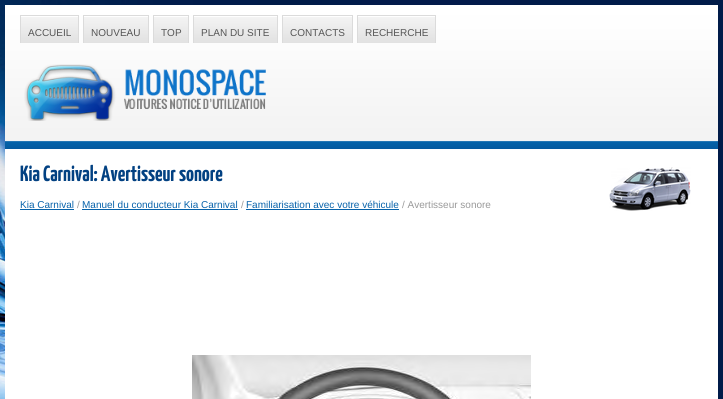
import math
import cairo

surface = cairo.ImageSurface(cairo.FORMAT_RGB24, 723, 399)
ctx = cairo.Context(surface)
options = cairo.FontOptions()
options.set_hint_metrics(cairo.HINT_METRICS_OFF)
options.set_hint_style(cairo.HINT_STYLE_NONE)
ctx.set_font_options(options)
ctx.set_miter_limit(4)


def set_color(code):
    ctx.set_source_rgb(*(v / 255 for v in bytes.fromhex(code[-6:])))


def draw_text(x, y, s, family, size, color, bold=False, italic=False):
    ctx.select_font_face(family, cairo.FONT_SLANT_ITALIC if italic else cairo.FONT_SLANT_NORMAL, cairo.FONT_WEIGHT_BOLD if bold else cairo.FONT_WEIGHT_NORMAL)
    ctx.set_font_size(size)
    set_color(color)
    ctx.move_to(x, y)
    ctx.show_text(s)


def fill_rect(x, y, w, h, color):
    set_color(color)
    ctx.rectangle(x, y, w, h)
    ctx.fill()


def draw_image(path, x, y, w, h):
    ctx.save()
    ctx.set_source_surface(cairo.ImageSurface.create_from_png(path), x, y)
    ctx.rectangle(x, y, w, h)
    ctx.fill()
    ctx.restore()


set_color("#001b49")
ctx.paint()
draw_image("assets/img1.png", 0, 0, 529, 399)
draw_image("assets/img2.png", 5, 5, 713, 136)
draw_image("assets/img3.png", 21, 17, 57, 26)
ctx.save()
ctx.rectangle(20, 15, 420, 28)
ctx.clip()
ctx.rectangle(20.5, 15.5, 58, 33)
set_color("#dbdbdb")
ctx.set_line_width(1)
ctx.stroke()
ctx.restore()
draw_text(28, 36, "ACCUEIL", "Liberation Sans", 10, "#555555")
draw_image("assets/img4.png", 84, 17, 64, 26)
ctx.save()
ctx.rectangle(20, 15, 420, 28)
ctx.clip()
ctx.rectangle(83.5, 15.5, 65, 33)
set_color("#dbdbdb")
ctx.set_line_width(1)
ctx.stroke()
ctx.restore()
draw_text(91, 36, "NOUVEAU", "Liberation Sans", 10, "#555555")
draw_image("assets/img5.png", 154, 17, 34, 26)
ctx.save()
ctx.rectangle(20, 15, 420, 28)
ctx.clip()
ctx.rectangle(153.5, 15.5, 35, 33)
set_color("#dbdbdb")
ctx.set_line_width(1)
ctx.stroke()
ctx.restore()
draw_text(161, 36, "TOP", "Liberation Sans", 10, "#555555")
draw_image("assets/img6.png", 194, 17, 83, 26)
ctx.save()
ctx.rectangle(20, 15, 420, 28)
ctx.clip()
ctx.rectangle(193.5, 15.5, 84, 33)
set_color("#dbdbdb")
ctx.set_line_width(1)
ctx.stroke()
ctx.restore()
draw_text(201, 36, "PLAN DU SITE", "Liberation Sans", 10, "#555555")
draw_image("assets/img7.png", 283, 17, 69, 26)
ctx.save()
ctx.rectangle(20, 15, 420, 28)
ctx.clip()
ctx.rectangle(282.5, 15.5, 70, 33)
set_color("#dbdbdb")
ctx.set_line_width(1)
ctx.stroke()
ctx.restore()
draw_text(290, 36, "CONTACTS", "Liberation Sans", 10, "#555555")
draw_image("assets/img8.png", 358, 17, 77, 26)
ctx.save()
ctx.rectangle(20, 15, 420, 28)
ctx.clip()
ctx.rectangle(357.5, 15.5, 78, 33)
set_color("#dbdbdb")
ctx.set_line_width(1)
ctx.stroke()
ctx.restore()
draw_text(365, 36, "RECHERCHE", "Liberation Sans", 10, "#555555")
draw_image("assets/img9.png", 24, 64, 242, 57)
draw_image("assets/img10.png", 5, 141, 713, 8)
fill_rect(5, 149, 713, 250, "#ffffff")
draw_text(20, 181, "Kia Carnival: Avertisseur sonore", "Yanone Kaffeesatz", 22, "#024182", bold=True)
draw_image("assets/img11.png", 609, 167, 82, 44)
draw_text(20, 208, "Kia Carnival", "Liberation Sans", 10, "#0762aa")
fill_rect(20, 209, 54, 1, "#0762aa")
draw_text(77, 208, "/", "Liberation Sans", 10, "#999999")
draw_text(82, 208, "Manuel du conducteur Kia Carnival", "Liberation Sans", 10, "#0762aa")
fill_rect(82, 209, 156, 1, "#0762aa")
draw_text(241, 208, "/", "Liberation Sans", 10, "#999999")
draw_text(246, 208, "Familiarisation avec votre véhicule", "Liberation Sans", 10, "#0762aa")
fill_rect(246, 209, 153, 1, "#0762aa")
draw_text(402, 208, "/ Avertisseur sonore", "Liberation Sans", 10, "#999999")
draw_image("assets/img12.png", 192, 355, 339, 44)
surface.write_to_png("output.png")
